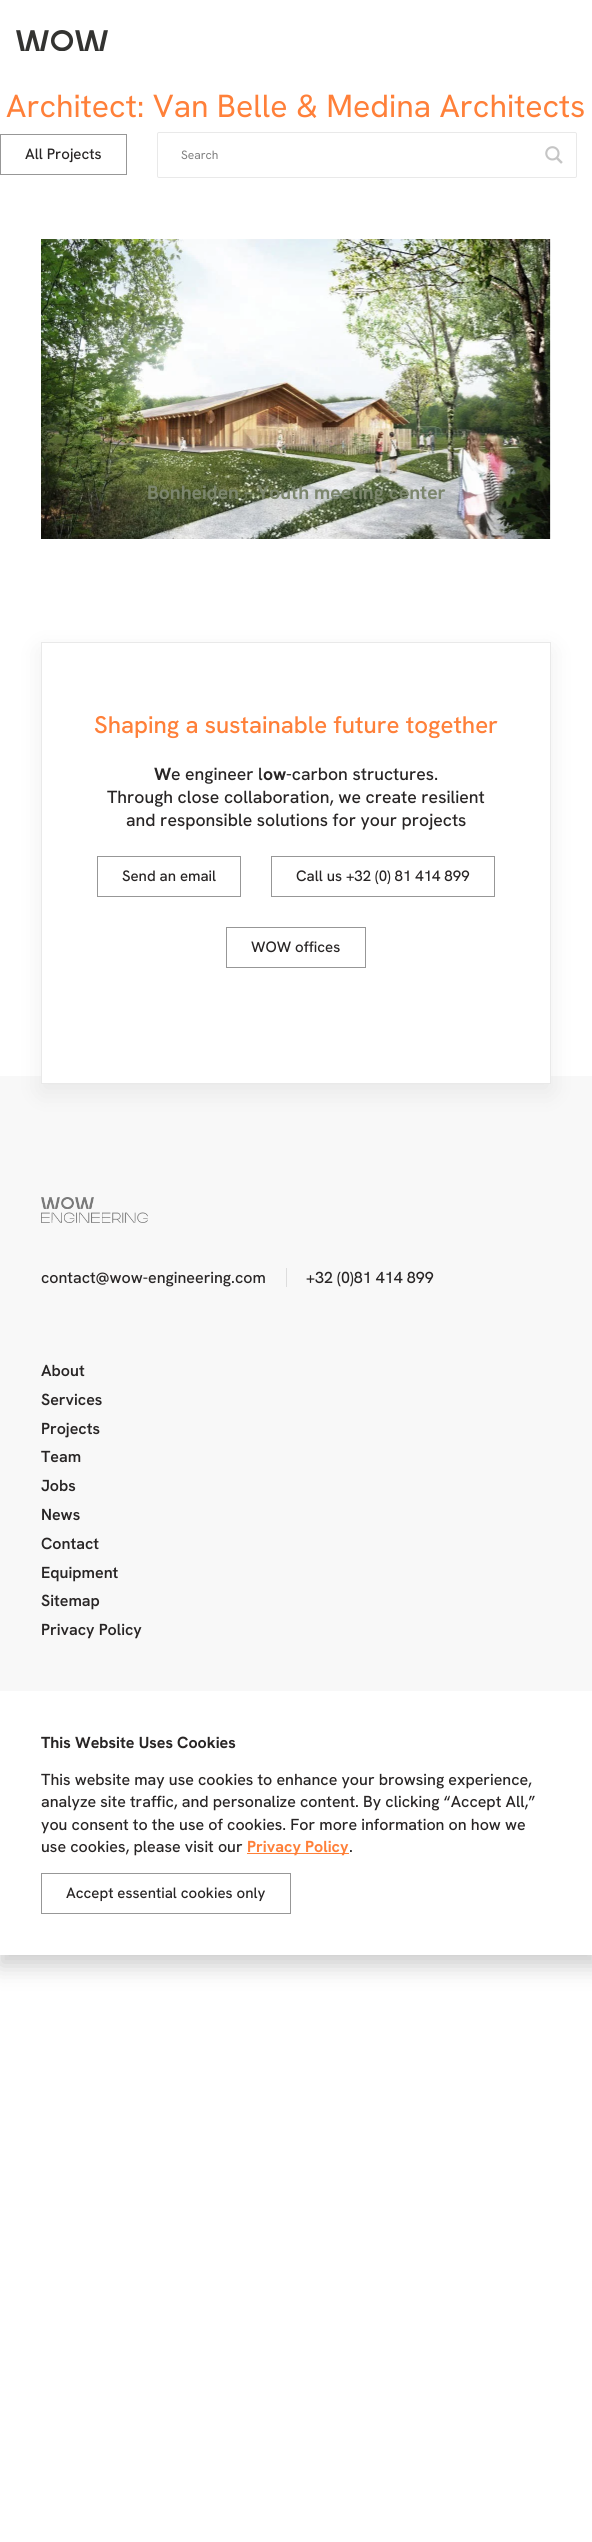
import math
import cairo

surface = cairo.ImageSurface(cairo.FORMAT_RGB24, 592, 2542)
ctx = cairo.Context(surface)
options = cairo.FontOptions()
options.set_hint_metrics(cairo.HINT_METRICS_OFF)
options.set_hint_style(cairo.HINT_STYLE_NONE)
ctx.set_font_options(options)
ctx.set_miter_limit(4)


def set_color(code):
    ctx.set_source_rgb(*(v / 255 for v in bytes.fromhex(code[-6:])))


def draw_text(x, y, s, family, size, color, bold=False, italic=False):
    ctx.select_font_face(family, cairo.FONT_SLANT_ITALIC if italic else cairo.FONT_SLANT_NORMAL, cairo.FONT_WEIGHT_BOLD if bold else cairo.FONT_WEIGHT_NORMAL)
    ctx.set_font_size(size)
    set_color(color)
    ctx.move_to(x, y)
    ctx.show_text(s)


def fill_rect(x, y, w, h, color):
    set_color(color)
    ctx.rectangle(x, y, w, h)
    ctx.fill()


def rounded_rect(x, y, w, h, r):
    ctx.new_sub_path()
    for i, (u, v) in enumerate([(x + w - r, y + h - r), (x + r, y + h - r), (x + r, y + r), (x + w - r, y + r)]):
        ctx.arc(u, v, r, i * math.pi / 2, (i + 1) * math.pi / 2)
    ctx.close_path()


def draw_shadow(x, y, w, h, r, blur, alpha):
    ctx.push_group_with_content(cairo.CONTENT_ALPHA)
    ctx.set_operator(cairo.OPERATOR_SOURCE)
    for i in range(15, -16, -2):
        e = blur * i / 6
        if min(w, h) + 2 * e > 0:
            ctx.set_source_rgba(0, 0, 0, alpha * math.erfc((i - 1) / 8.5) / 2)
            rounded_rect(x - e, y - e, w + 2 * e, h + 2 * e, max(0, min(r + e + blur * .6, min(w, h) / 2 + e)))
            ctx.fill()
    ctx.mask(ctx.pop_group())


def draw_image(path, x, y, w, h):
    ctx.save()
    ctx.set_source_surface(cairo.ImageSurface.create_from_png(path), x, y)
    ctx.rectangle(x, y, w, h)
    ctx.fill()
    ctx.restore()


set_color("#ffffff")
ctx.paint()
draw_image("assets/img1.png", 16, 30, 92, 21)
draw_text(6, 117, "Architect: Van Belle & Medina Architects", "Hanken Grotesk", 32, "#ff8039")
ctx.rectangle(0.5, 134.5, 126, 40)
set_color("#979797")
ctx.set_line_width(1)
ctx.stroke()
draw_text(25, 159, "All Projects", "Hanken Grotesk Medium", 15, "#282525")
rounded_rect(157.5, 132.5, 419, 45, 1.5)
set_color("#e9e9e9")
ctx.stroke()
draw_text(181, 159, "Search", "Hanken Grotesk", 12, "#7d7d7d")
draw_image("assets/img2.png", 545, 146, 18, 18)
draw_image("assets/img3.png", 41, 239, 510, 300)
draw_text(147, 499, "Bonheiden – Youth meeting center", "Hanken Grotesk", 19.25, "#7c866d", bold=True)
set_color("#000000")
draw_shadow(-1, 1696, 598, 270, 0, 11.5, 0.2)
fill_rect(0, 1076, 592, 615, "#f8f8f8")
set_color("#000000")
draw_shadow(41, 650, 510, 442, 0, 13.5, 0.07)
set_color("#ffffff")
ctx.rectangle(41.5, 642.5, 509, 441)
ctx.fill_preserve()
set_color("#e9e9e9")
ctx.stroke()
draw_text(94, 733, "Shaping a sustainable future together", "Hanken Grotesk Medium", 24, "#ff8039")
draw_text(154, 780, "W", "Hanken Grotesk", 17.6, "#282525", bold=True)
draw_text(171, 780, "e engineer l", "Hanken Grotesk Medium", 17.6, "#282525")
draw_text(263, 780, "ow", "Hanken Grotesk", 17.6, "#282525", bold=True)
draw_text(286, 780, "-carbon structures.", "Hanken Grotesk Medium", 17.6, "#282525")
draw_text(107, 803, "Through close collaboration, we create resilient", "Hanken Grotesk Medium", 17.6, "#282525")
draw_text(126, 826, "and responsible solutions for your projects", "Hanken Grotesk Medium", 17.6, "#282525")
ctx.rectangle(97.5, 856.5, 143, 40)
set_color("#979797")
ctx.stroke()
draw_text(122, 881, "Send an email", "Hanken Grotesk Medium", 15, "#282525")
ctx.rectangle(271.5, 856.5, 223, 40)
set_color("#979797")
ctx.stroke()
draw_text(296, 881, "Call us +32 (0) 81 414 899", "Hanken Grotesk Medium", 15, "#282525")
ctx.rectangle(226.5, 927.5, 139, 40)
set_color("#979797")
ctx.stroke()
draw_text(251, 952, "WOW offices", "Hanken Grotesk Medium", 15, "#282525")
draw_image("assets/img4.png", 41, 1197, 107, 26)
draw_text(41, 1283, "contact@wow-engineering.com", "Hanken Grotesk Medium", 16, "#282525")
fill_rect(286, 1268, 1, 19, "#dddddd")
draw_text(306, 1283, "+32 (0)81 414 899", "Hanken Grotesk Medium", 16, "#282525")
draw_text(41, 1376, "About", "Hanken Grotesk SemiBold", 16, "#282525")
draw_text(41, 1405, "Services", "Hanken Grotesk SemiBold", 16, "#282525")
draw_text(41, 1434, "Projects", "Hanken Grotesk SemiBold", 16, "#282525")
draw_text(41, 1462, "Team", "Hanken Grotesk SemiBold", 16, "#282525")
draw_text(41, 1491, "Jobs", "Hanken Grotesk SemiBold", 16, "#282525")
draw_text(41, 1520, "News", "Hanken Grotesk SemiBold", 16, "#282525")
draw_text(41, 1549, "Contact", "Hanken Grotesk SemiBold", 16, "#282525")
draw_text(41, 1578, "Equipment", "Hanken Grotesk SemiBold", 16, "#282525")
draw_text(41, 1606, "Sitemap", "Hanken Grotesk SemiBold", 16, "#282525")
draw_text(41, 1635, "Privacy Policy", "Hanken Grotesk SemiBold", 16, "#282525")
fill_rect(0, 1691, 592, 264, "#ffffff")
draw_text(41, 1748, "This Website Uses Cookies", "Hanken Grotesk", 16, "#282525", bold=True)
draw_text(41, 1785, "This website may use cookies to enhance your browsing experience,", "Hanken Grotesk Medium", 16, "#282525")
draw_text(41, 1807, "analyze site traffic, and personalize content. By clicking “Accept All,”", "Hanken Grotesk Medium", 16, "#282525")
draw_text(41, 1830, "you consent to the use of cookies. For more information on how we", "Hanken Grotesk Medium", 16, "#282525")
draw_text(41, 1852, "use cookies, please visit our", "Hanken Grotesk Medium", 16, "#282525")
fill_rect(247, 1853, 102, 1, "#ff8039")
draw_text(247, 1852, "Privacy Policy", "Hanken Grotesk", 16, "#ff8039", bold=True)
draw_text(349, 1852, ".", "Hanken Grotesk Medium", 16, "#282525")
ctx.rectangle(41.5, 1873.5, 249, 40)
set_color("#979797")
ctx.stroke()
draw_text(66, 1898, "Accept essential cookies only", "Hanken Grotesk Medium", 15, "#282525")
surface.write_to_png("output.png")
